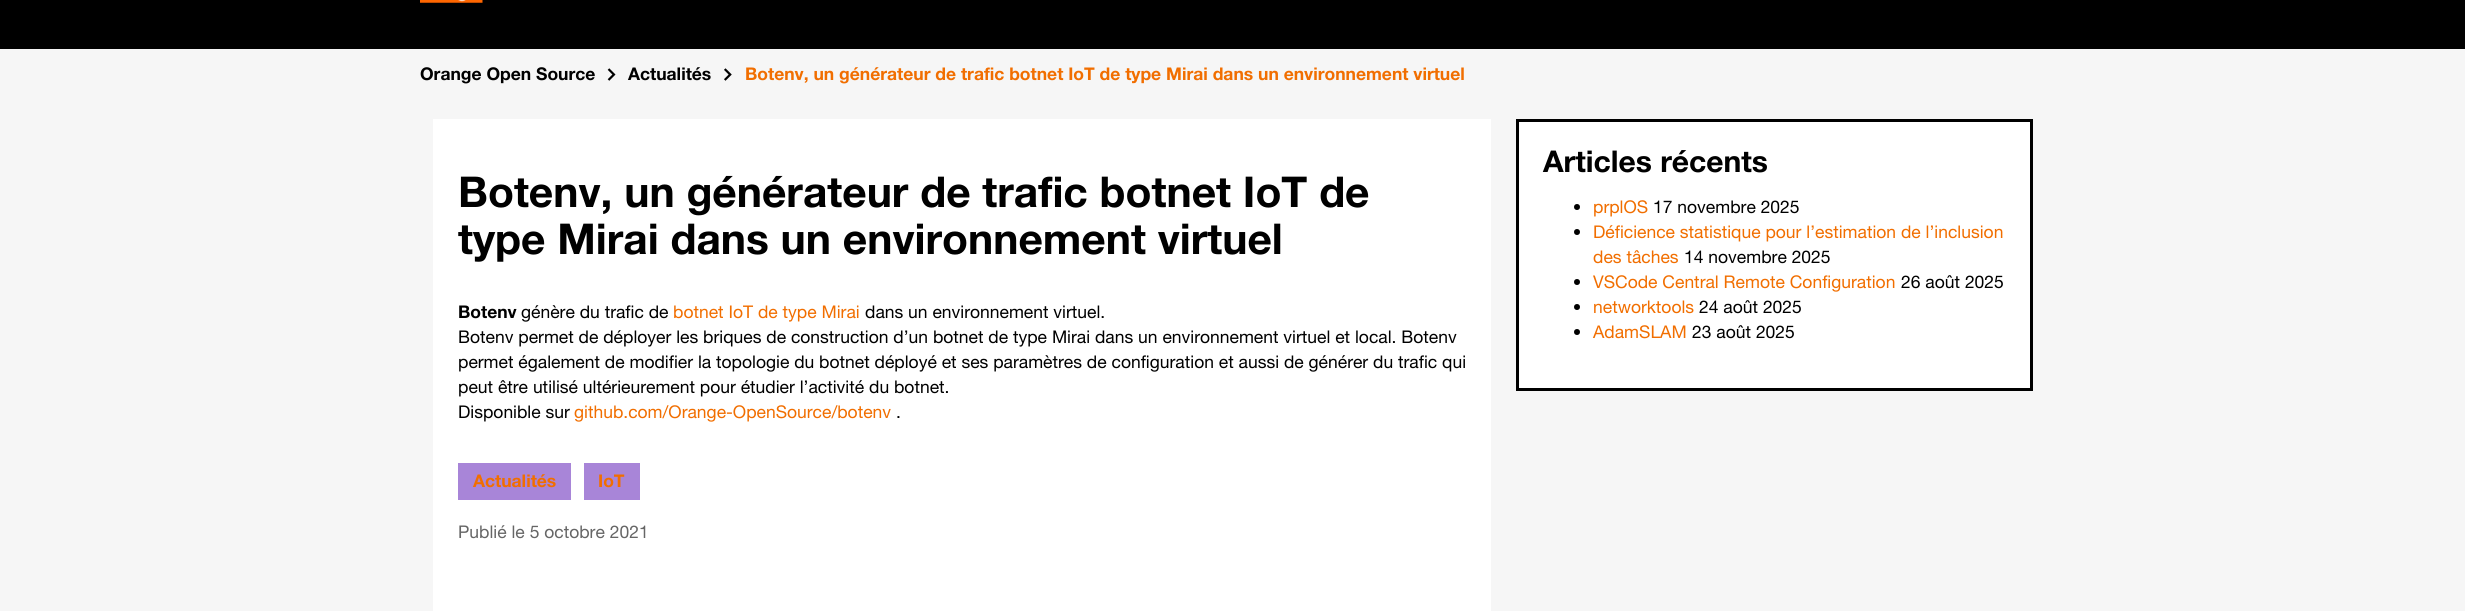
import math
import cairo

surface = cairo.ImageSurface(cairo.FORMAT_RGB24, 2465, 611)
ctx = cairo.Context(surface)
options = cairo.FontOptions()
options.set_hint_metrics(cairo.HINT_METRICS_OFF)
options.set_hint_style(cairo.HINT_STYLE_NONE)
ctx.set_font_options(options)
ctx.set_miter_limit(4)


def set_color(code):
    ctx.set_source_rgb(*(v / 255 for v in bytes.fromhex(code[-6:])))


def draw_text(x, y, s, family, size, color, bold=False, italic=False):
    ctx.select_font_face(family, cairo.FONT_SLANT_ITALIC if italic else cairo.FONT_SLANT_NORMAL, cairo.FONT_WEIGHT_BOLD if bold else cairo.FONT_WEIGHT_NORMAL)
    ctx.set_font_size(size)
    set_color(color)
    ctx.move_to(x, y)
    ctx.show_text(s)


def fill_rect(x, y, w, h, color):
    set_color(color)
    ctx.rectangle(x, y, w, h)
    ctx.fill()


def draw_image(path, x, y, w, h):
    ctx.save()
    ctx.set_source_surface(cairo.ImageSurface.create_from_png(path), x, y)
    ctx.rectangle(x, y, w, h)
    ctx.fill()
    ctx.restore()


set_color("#f6f6f6")
ctx.paint()
fill_rect(0, 0, 2465, 49, "#000000")
draw_image("assets/img1.png", 420, 0, 63, 3)
draw_text(420, 80, "Orange Open Source", "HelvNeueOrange", 17.5, "#000000", bold=True)
draw_image("assets/img2.png", 607, 68, 9, 13)
draw_text(628, 80, "Actualités", "HelvNeueOrange", 17.5, "#000000", bold=True)
draw_image("assets/img3.png", 724, 68, 8, 13)
draw_text(745, 80, "Botenv, un générateur de trafic botnet IoT de type Mirai dans un environnement virtuel", "HelvNeueOrange", 17.5, "#f16e00", bold=True)
fill_rect(433, 119, 1058, 492, "#ffffff")
draw_text(458, 207, "Botenv, un générateur de trafic botnet IoT de", "HelvNeueOrange", 42.5, "#000000", bold=True)
draw_text(458, 254, "type Mirai dans un environnement virtuel", "HelvNeueOrange", 42.5, "#000000", bold=True)
draw_text(458, 318, "Botenv", "HelvNeueOrange", 17.5, "#000000", bold=True)
draw_text(521, 318, "génère du trafic de", "HelvNeueOrange", 17.5, "#000000")
draw_text(673, 318, "botnet IoT de type Mirai", "HelvNeueOrange", 17.5, "#f16e00")
draw_text(865, 318, "dans un environnement virtuel.", "HelvNeueOrange", 17.5, "#000000")
draw_text(458, 343, "Botenv permet de déployer les briques de construction d’un botnet de type Mirai dans un environnement virtuel et local. Botenv", "HelvNeueOrange", 17.5, "#000000")
draw_text(458, 368, "permet également de modifier la topologie du botnet déployé et ses paramètres de configuration et aussi de générer du trafic qui", "HelvNeueOrange", 17.5, "#000000")
draw_text(458, 393, "peut être utilisé ultérieurement pour étudier l’activité du botnet.", "HelvNeueOrange", 17.5, "#000000")
draw_text(458, 418, "Disponible sur", "HelvNeueOrange", 17.5, "#000000")
draw_text(574, 418, "github.com/Orange-OpenSource/botenv", "HelvNeueOrange", 17.5, "#f16e00")
draw_text(896, 418, ".", "HelvNeueOrange", 17.5, "#000000")
fill_rect(458, 463, 113, 37, "#a885d8")
draw_text(473, 487, "Actualités", "HelvNeueOrange", 17.5, "#f16e00", bold=True)
fill_rect(584, 463, 56, 37, "#a885d8")
draw_text(598, 487, "IoT", "HelvNeueOrange", 17.5, "#f16e00", bold=True)
draw_text(458, 538, "Publié le 5 octobre 2021", "HelvNeueOrange", 17.5, "#666666")
set_color("#ffffff")
ctx.rectangle(1517.5, 120.5, 514, 269)
ctx.fill_preserve()
set_color("#000000")
ctx.set_line_width(3)
ctx.stroke()
draw_text(1543, 172, "Articles récents", "HelvNeueOrange", 30, "#000000", bold=True)
ctx.new_path()
ctx.arc(1577, 207, 3, 0, 2 * math.pi)
ctx.fill()
draw_text(1593, 213, "prplOS", "HelvNeueOrange", 17.5, "#f16e00")
draw_text(1653, 213, "17 novembre 2025", "HelvNeueOrange", 17.5, "#000000")
ctx.new_path()
ctx.arc(1577, 232, 3, 0, 2 * math.pi)
ctx.fill()
draw_text(1593, 238, "Déficience statistique pour l’estimation de l’inclusion", "HelvNeueOrange", 17.5, "#f16e00")
draw_text(1593, 263, "des tâches", "HelvNeueOrange", 17.5, "#f16e00")
draw_text(1684, 263, "14 novembre 2025", "HelvNeueOrange", 17.5, "#000000")
ctx.new_path()
ctx.arc(1577, 282, 3, 0, 2 * math.pi)
ctx.fill()
draw_text(1593, 288, "VSCode Central Remote Configuration", "HelvNeueOrange", 17.5, "#f16e00")
draw_text(1901, 288, "26 août 2025", "HelvNeueOrange", 17.5, "#000000")
ctx.new_path()
ctx.arc(1577, 307, 3, 0, 2 * math.pi)
ctx.fill()
draw_text(1593, 313, "networktools", "HelvNeueOrange", 17.5, "#f16e00")
draw_text(1699, 313, "24 août 2025", "HelvNeueOrange", 17.5, "#000000")
ctx.new_path()
ctx.arc(1577, 332, 3, 0, 2 * math.pi)
ctx.fill()
draw_text(1593, 338, "AdamSLAM", "HelvNeueOrange", 17.5, "#f16e00")
draw_text(1692, 338, "23 août 2025", "HelvNeueOrange", 17.5, "#000000")
surface.write_to_png("output.png")
